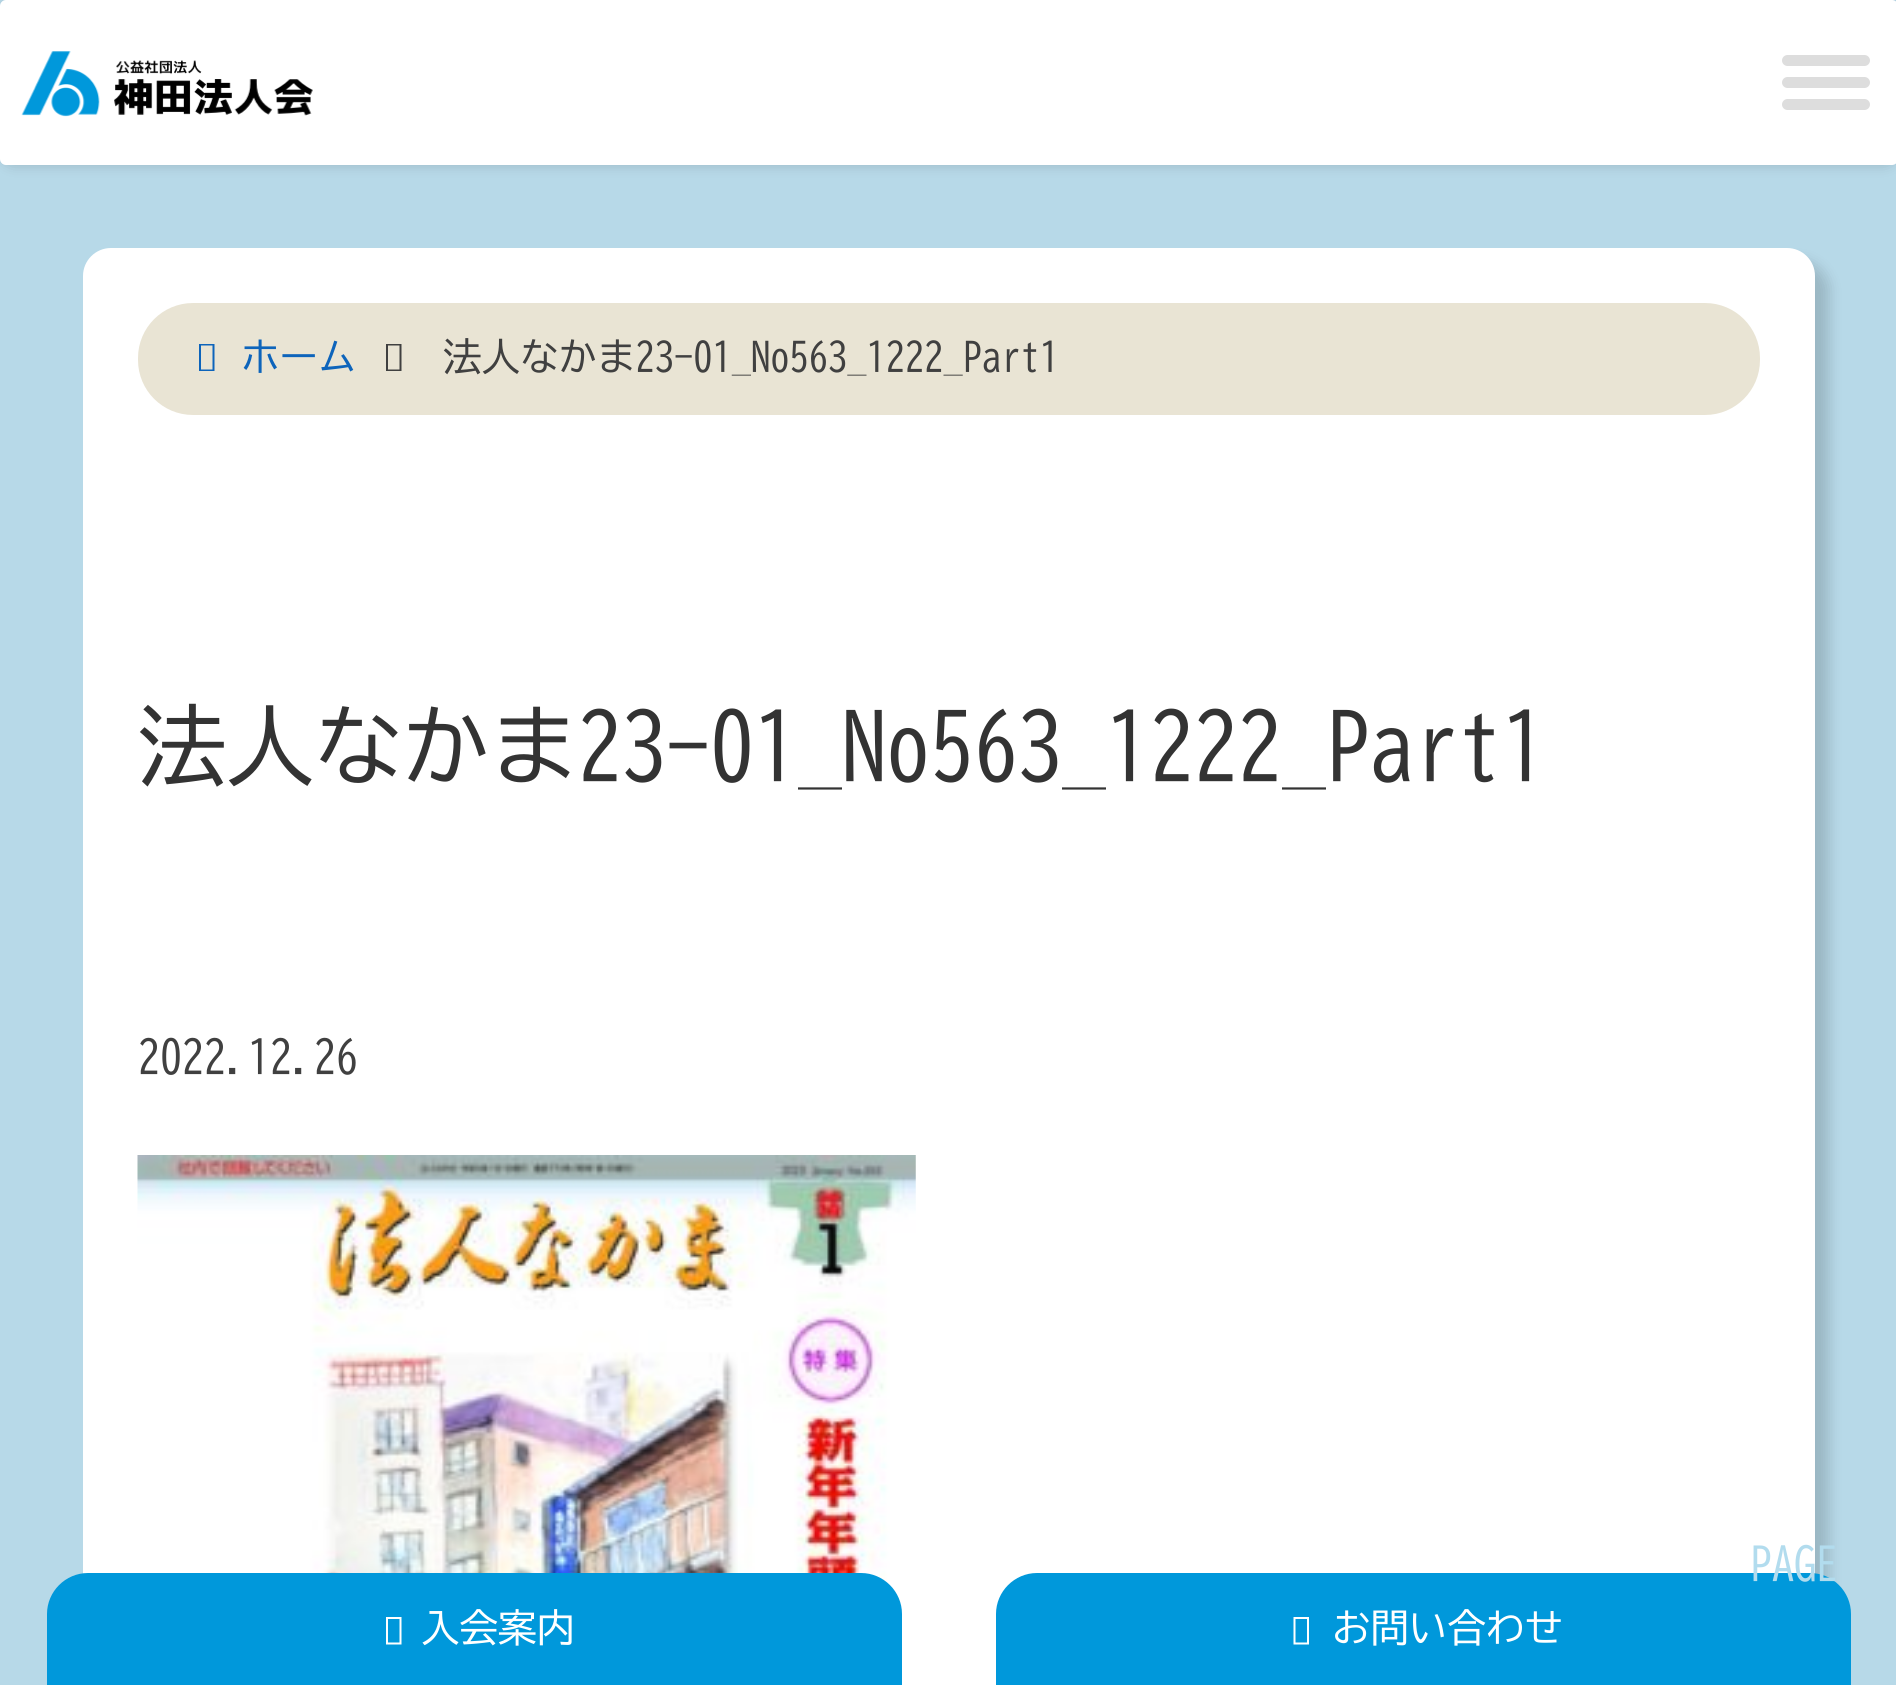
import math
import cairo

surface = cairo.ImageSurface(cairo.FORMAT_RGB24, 1896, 1685)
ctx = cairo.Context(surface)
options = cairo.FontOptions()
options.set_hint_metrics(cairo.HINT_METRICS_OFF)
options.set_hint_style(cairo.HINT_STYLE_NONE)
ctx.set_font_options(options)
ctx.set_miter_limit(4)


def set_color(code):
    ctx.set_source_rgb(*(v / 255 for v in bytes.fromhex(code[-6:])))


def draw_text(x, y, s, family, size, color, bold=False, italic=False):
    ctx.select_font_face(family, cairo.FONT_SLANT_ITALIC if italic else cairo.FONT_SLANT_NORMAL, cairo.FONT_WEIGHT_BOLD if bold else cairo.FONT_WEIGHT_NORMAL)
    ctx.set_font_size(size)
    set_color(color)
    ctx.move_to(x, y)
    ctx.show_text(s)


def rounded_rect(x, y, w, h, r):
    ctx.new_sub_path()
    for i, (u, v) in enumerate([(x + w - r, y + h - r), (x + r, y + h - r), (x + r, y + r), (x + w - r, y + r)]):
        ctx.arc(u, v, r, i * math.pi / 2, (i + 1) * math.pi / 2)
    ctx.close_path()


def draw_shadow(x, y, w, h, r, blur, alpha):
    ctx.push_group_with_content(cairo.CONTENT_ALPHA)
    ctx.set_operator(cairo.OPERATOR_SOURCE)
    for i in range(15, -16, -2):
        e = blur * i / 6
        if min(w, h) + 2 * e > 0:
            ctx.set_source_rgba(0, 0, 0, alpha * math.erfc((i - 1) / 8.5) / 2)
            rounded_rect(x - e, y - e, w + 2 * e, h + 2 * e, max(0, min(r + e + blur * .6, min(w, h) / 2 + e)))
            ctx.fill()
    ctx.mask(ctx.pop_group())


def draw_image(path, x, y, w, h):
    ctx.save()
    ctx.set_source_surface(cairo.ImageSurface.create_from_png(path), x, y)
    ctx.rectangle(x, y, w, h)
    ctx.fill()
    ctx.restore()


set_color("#b7d9e8")
ctx.paint()
set_color("#000000")
draw_shadow(0, 0, 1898, 165, 14, 7, 0.16)
set_color("#ffffff")
rounded_rect(0, 0, 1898, 165, 6)
ctx.fill()
draw_image("assets/img1.png", 21, 51, 292, 66)
set_color("#dddddd")
rounded_rect(1782, 55, 88, 11, 5.5)
ctx.fill()
rounded_rect(1782, 77, 88, 11, 5.5)
ctx.fill()
rounded_rect(1782, 99, 88, 11, 5.5)
ctx.fill()
set_color("#000000")
draw_shadow(96, 261, 1733, 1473, 28, 7, 0.16)
set_color("#ffffff")
rounded_rect(83, 248, 1732, 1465, 28)
ctx.fill()
set_color("#e9e4d4")
rounded_rect(138, 303, 1622, 112, 55)
ctx.fill()
set_color("#0d64bb")
ctx.new_path()
ctx.move_to(199, 371)
ctx.line_to(199, 344)
ctx.line_to(214.5, 344)
ctx.line_to(214.5, 371)
ctx.close_path()
ctx.move_to(201, 369.5)
ctx.line_to(212.5, 369.5)
ctx.line_to(212.5, 345.5)
ctx.line_to(201, 345.5)
ctx.close_path()
ctx.fill()
draw_text(241, 371, "ホーム", "BIZ UDGothic", 38.5, "#0d64bb")
set_color("#404040")
ctx.new_path()
ctx.move_to(386, 371)
ctx.line_to(386, 344)
ctx.line_to(401.5, 344)
ctx.line_to(401.5, 371)
ctx.close_path()
ctx.move_to(388, 369.5)
ctx.line_to(399.5, 369.5)
ctx.line_to(399.5, 345.5)
ctx.line_to(388, 345.5)
ctx.close_path()
ctx.fill()
draw_text(443, 371, "法人なかま23-01_No563_1222_Part1", "BIZ UDGothic", 38.5, "#404040")
draw_text(138, 779, "法人なかま23-01_No563_1222_Part1", "BIZ UDGothic", 88, "#333333")
draw_text(138, 1073, "2022.12.26", "BIZ UDGothic", 44, "#404040")
draw_image("assets/img2.png", 137, 1155, 779, 530)
set_color("#0098db")
ctx.new_path()
ctx.move_to(1037, 1573)
ctx.line_to(1810, 1573)
ctx.curve_to(1832.5, 1573, 1851, 1591.5, 1851, 1614)
ctx.line_to(1851, 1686)
ctx.line_to(996, 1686)
ctx.line_to(996, 1614)
ctx.curve_to(996, 1591.5, 1014.5, 1573, 1037, 1573)
ctx.close_path()
ctx.fill()
draw_text(1750, 1580, "PAGE", "BIZ UDGothic", 44, "#b2dcee")
set_color("#0098db")
ctx.new_path()
ctx.move_to(88, 1573)
ctx.line_to(861, 1573)
ctx.curve_to(883.5, 1573, 902, 1591.5, 902, 1614)
ctx.line_to(902, 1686)
ctx.line_to(47, 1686)
ctx.line_to(47, 1614)
ctx.curve_to(47, 1591.5, 65.5, 1573, 88, 1573)
ctx.close_path()
ctx.fill()
set_color("#ffffff")
ctx.new_path()
ctx.move_to(386, 1644.5)
ctx.line_to(386, 1617)
ctx.line_to(401.5, 1617)
ctx.line_to(401.5, 1644.5)
ctx.close_path()
ctx.move_to(388, 1642.5)
ctx.line_to(399.5, 1642.5)
ctx.line_to(399.5, 1619)
ctx.line_to(388, 1619)
ctx.close_path()
ctx.fill()
draw_text(421, 1642, "入会案内", "BIZ UDGothic", 38.5, "#ffffff")
ctx.new_path()
ctx.move_to(1293.5, 1644.5)
ctx.line_to(1293.5, 1617)
ctx.line_to(1309, 1617)
ctx.line_to(1309, 1644.5)
ctx.close_path()
ctx.move_to(1295.5, 1642.5)
ctx.line_to(1307, 1642.5)
ctx.line_to(1307, 1619)
ctx.line_to(1295.5, 1619)
ctx.close_path()
ctx.fill()
draw_text(1332, 1642, "お問い合わせ", "BIZ UDGothic", 38.5, "#ffffff")
surface.write_to_png("output.png")
